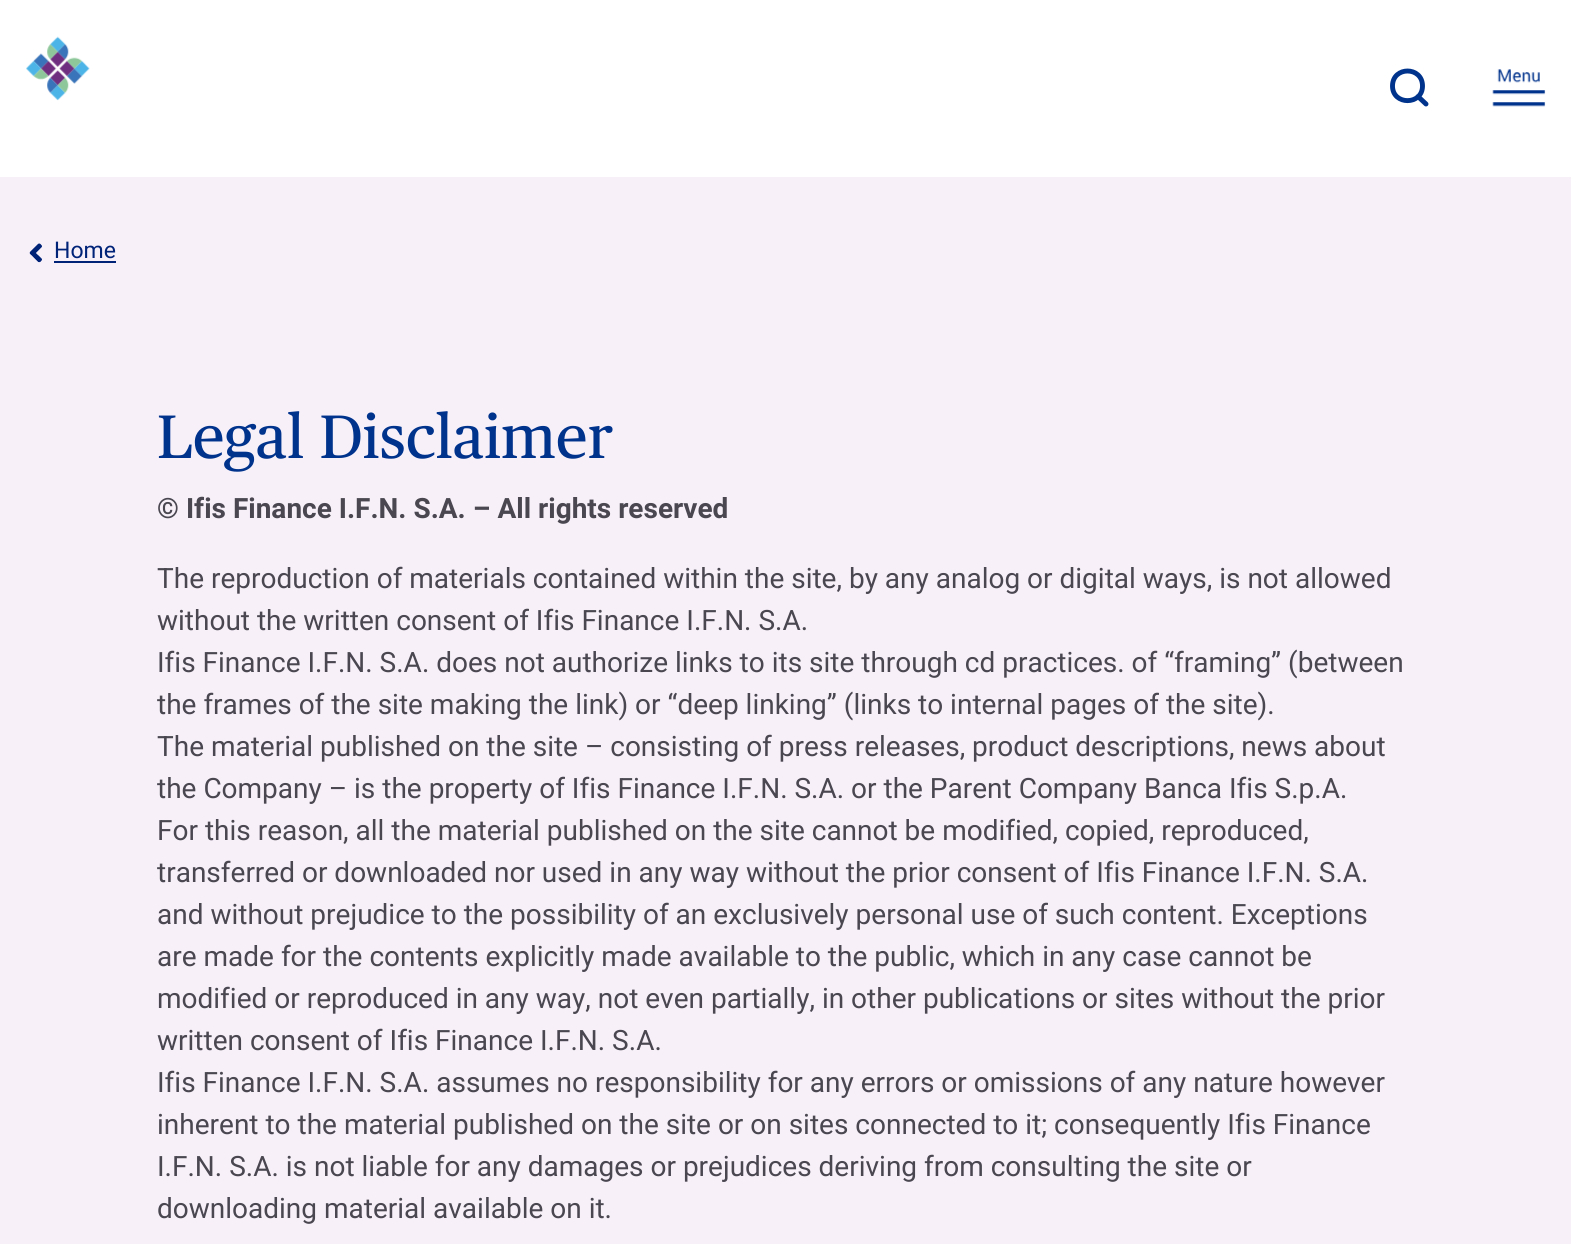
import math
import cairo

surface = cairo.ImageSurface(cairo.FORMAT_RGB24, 1571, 1244)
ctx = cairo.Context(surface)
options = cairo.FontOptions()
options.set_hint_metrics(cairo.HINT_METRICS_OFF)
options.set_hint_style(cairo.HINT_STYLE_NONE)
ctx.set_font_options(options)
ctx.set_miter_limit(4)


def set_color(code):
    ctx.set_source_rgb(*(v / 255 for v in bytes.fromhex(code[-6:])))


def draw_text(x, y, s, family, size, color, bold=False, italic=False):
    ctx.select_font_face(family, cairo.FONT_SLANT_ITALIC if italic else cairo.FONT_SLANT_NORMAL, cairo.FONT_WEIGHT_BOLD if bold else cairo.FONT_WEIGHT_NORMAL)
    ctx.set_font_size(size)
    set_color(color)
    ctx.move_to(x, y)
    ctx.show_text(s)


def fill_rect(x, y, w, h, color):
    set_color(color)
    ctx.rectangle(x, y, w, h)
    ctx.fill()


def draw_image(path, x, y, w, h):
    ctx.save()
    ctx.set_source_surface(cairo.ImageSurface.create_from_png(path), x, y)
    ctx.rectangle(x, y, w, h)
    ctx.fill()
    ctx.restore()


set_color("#f7f0f9")
ctx.paint()
fill_rect(0, 0, 1571, 177, "#ffffff")
draw_image("assets/img1.png", 26, 36, 64, 65)
ctx.new_path()
ctx.move_to(1426, 104)
ctx.line_to(1418, 96.5)
ctx.move_to(1422.5, 86)
ctx.curve_to(1422.5, 105.5, 1392.5, 105.5, 1392.5, 86)
ctx.curve_to(1392.5, 66, 1422.5, 66, 1422.5, 86)
ctx.close_path()
set_color("#00338c")
ctx.set_line_width(4.9)
ctx.set_line_cap(cairo.LINE_CAP_ROUND)
ctx.stroke()
draw_image("assets/img2.png", 1492, 69, 54, 38)
draw_image("assets/img3.png", 29, 243, 13, 20)
draw_text(54, 258, "Home", "Roboto", 23, "#002378")
fill_rect(54, 261, 62, 2, "#002378")
draw_text(157, 458, "Legal Disclaimer", "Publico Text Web", 61.25, "#00338c")
draw_text(157, 518, "© Ifis Finance I.F.N. S.A. – All rights reserved", "Roboto", 28, "#4a4751", bold=True)
draw_text(157, 588, "The reproduction of materials contained within the site, by any analog or digital ways, is not allowed", "Roboto", 28, "#4a4751")
draw_text(157, 630, "without the written consent of Ifis Finance I.F.N. S.A.", "Roboto", 28, "#4a4751")
draw_text(157, 672, "Ifis Finance I.F.N. S.A. does not authorize links to its site through cd practices. of “framing” (between", "Roboto", 28, "#4a4751")
draw_text(157, 714, "the frames of the site making the link) or “deep linking” (links to internal pages of the site).", "Roboto", 28, "#4a4751")
draw_text(157, 756, "The material published on the site – consisting of press releases, product descriptions, news about", "Roboto", 28, "#4a4751")
draw_text(157, 798, "the Company – is the property of Ifis Finance I.F.N. S.A. or the Parent Company Banca Ifis S.p.A.", "Roboto", 28, "#4a4751")
draw_text(157, 840, "For this reason, all the material published on the site cannot be modified, copied, reproduced,", "Roboto", 28, "#4a4751")
draw_text(157, 882, "transferred or downloaded nor used in any way without the prior consent of Ifis Finance I.F.N. S.A.", "Roboto", 28, "#4a4751")
draw_text(157, 924, "and without prejudice to the possibility of an exclusively personal use of such content. Exceptions", "Roboto", 28, "#4a4751")
draw_text(157, 966, "are made for the contents explicitly made available to the public, which in any case cannot be", "Roboto", 28, "#4a4751")
draw_text(157, 1008, "modified or reproduced in any way, not even partially, in other publications or sites without the prior", "Roboto", 28, "#4a4751")
draw_text(157, 1050, "written consent of Ifis Finance I.F.N. S.A.", "Roboto", 28, "#4a4751")
draw_text(157, 1092, "Ifis Finance I.F.N. S.A. assumes no responsibility for any errors or omissions of any nature however", "Roboto", 28, "#4a4751")
draw_text(157, 1134, "inherent to the material published on the site or on sites connected to it; consequently Ifis Finance", "Roboto", 28, "#4a4751")
draw_text(157, 1176, "I.F.N. S.A. is not liable for any damages or prejudices deriving from consulting the site or", "Roboto", 28, "#4a4751")
draw_text(157, 1218, "downloading material available on it.", "Roboto", 28, "#4a4751")
surface.write_to_png("output.png")
